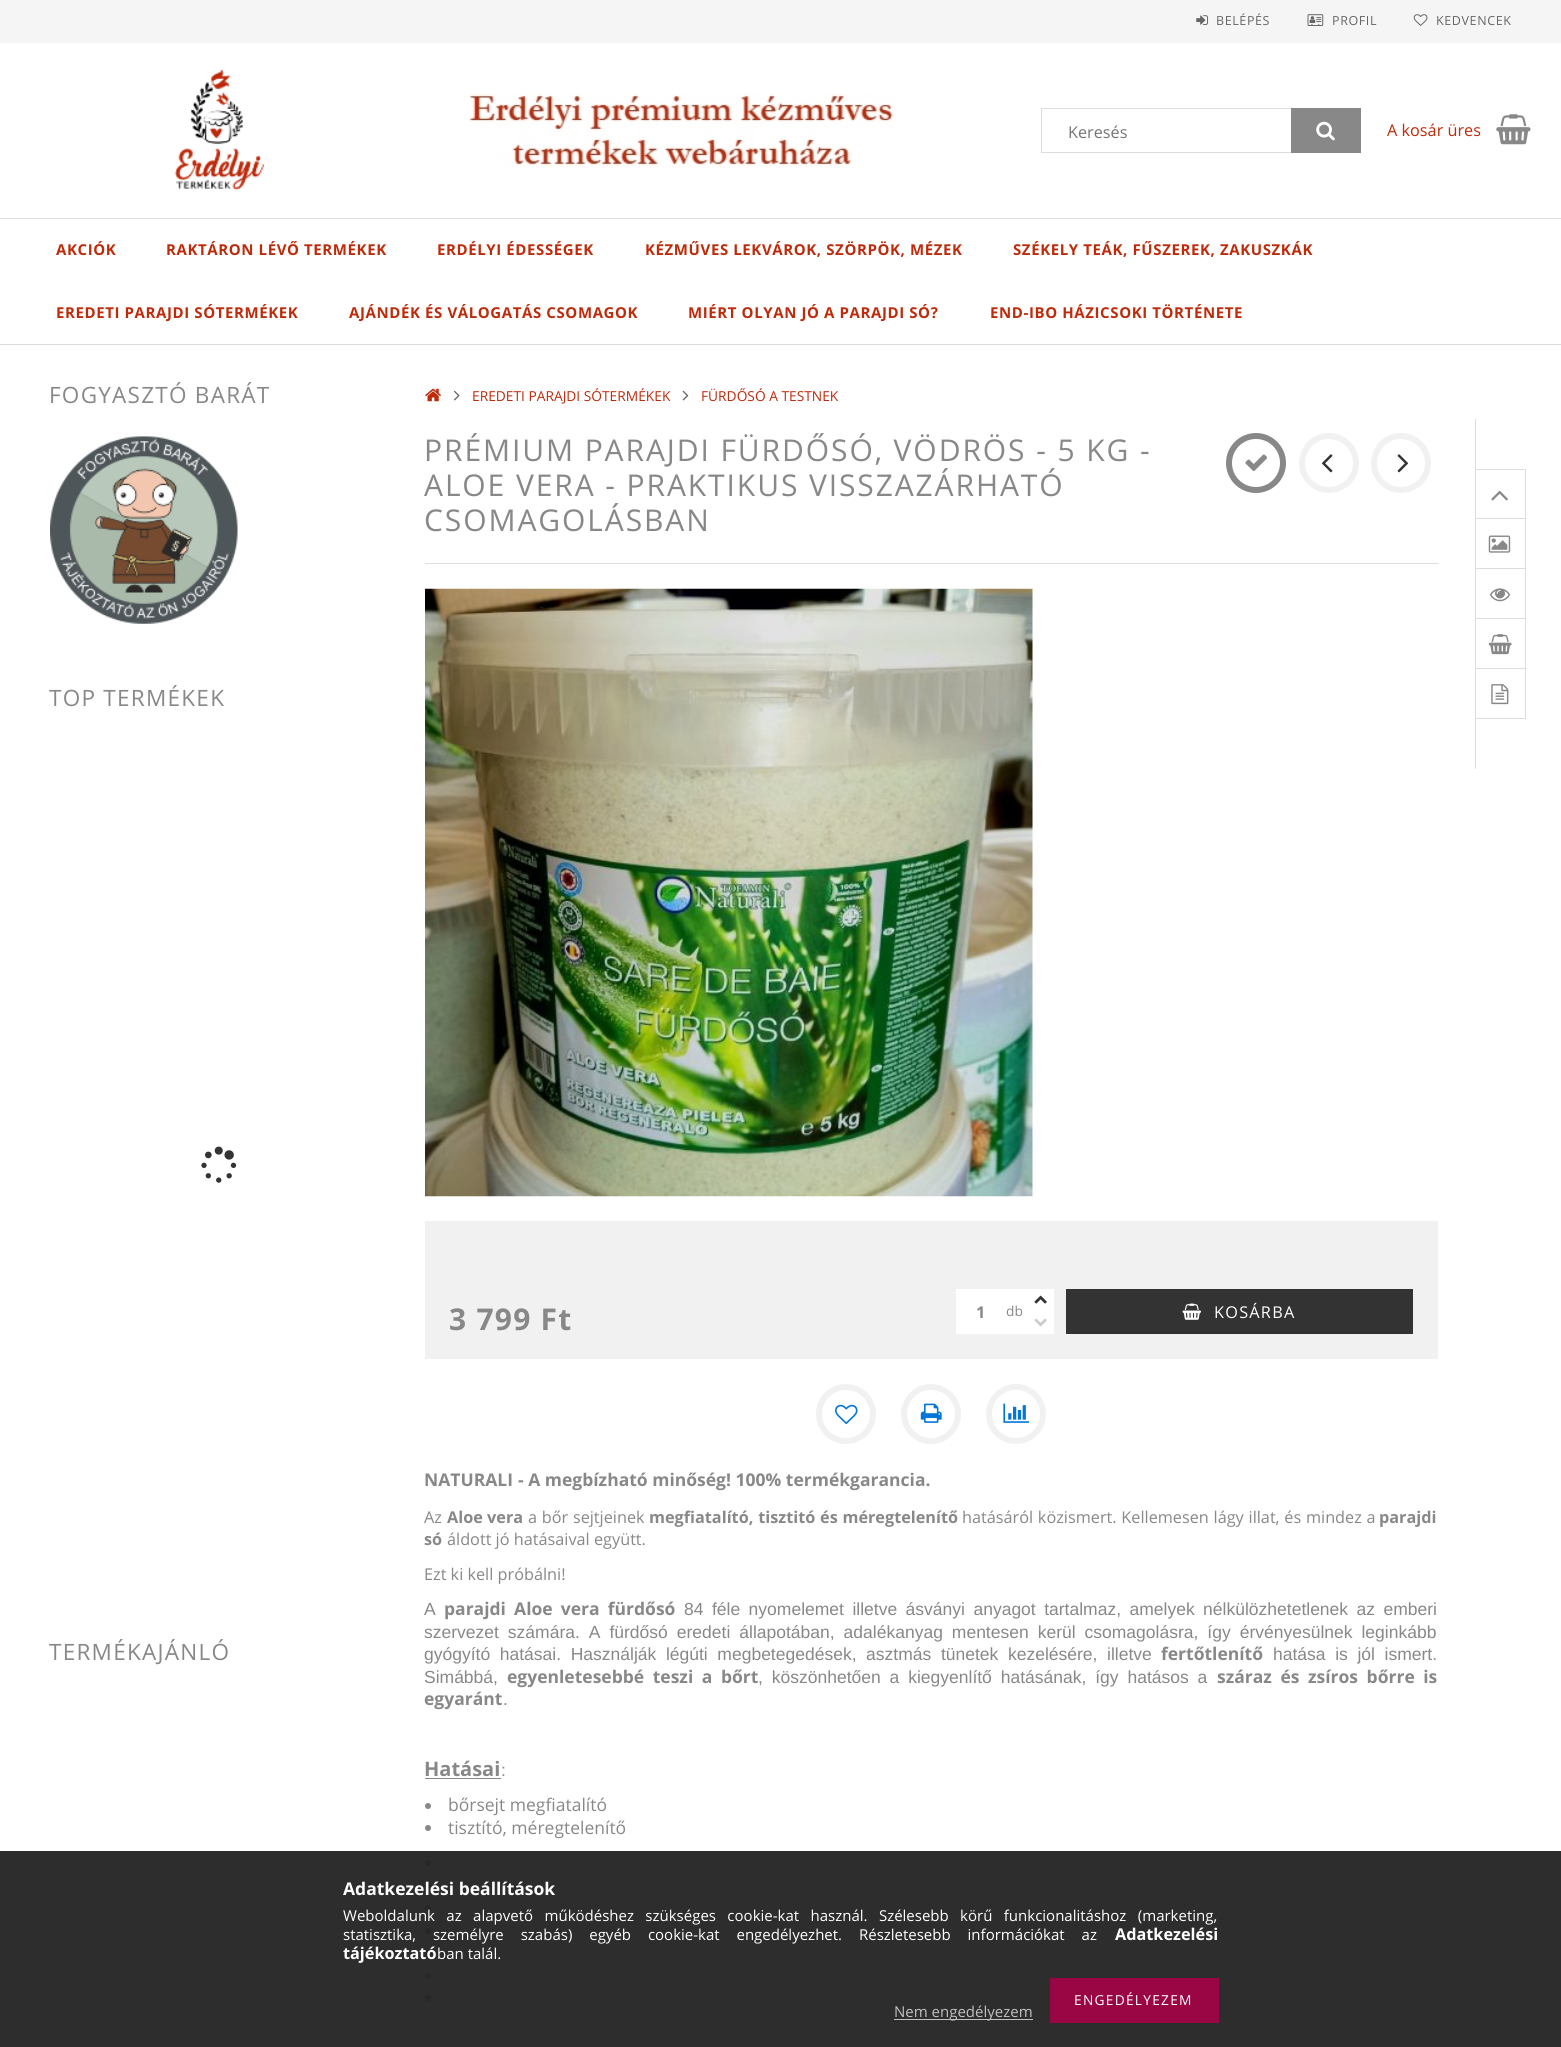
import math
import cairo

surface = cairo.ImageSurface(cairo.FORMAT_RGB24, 1561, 2047)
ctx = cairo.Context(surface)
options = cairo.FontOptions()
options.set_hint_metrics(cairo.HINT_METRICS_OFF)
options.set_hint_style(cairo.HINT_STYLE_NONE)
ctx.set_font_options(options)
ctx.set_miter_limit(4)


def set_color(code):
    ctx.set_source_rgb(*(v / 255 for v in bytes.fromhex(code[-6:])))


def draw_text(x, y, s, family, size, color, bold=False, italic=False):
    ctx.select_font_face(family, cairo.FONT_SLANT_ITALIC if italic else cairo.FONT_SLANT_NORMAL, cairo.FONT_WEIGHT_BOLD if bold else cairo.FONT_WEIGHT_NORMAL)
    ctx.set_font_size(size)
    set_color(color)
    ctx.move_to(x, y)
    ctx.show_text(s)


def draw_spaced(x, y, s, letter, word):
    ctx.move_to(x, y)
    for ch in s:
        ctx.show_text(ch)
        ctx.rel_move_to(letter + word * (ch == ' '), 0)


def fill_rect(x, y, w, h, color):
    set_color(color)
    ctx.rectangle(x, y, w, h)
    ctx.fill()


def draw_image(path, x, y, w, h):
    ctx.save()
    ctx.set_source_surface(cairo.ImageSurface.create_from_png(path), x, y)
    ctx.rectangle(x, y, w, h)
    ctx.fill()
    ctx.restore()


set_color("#ffffff")
ctx.paint()
fill_rect(0, 1851, 1561, 196, "#2d2d2d")
fill_rect(0, 0, 1561, 43, "#f5f5f5")
draw_image("assets/img1.png", 1196, 15, 13, 10)
ctx.select_font_face("Open Sans")
ctx.set_font_size(12.5)
set_color("#666666")
draw_spaced(1216, 25, "BELÉPÉS", 0.6, 0)
draw_image("assets/img2.png", 1307, 14, 17, 12)
draw_spaced(1332, 25, "PROFIL", 0.6, 0)
draw_image("assets/img3.png", 1413, 14, 15, 12)
draw_spaced(1436, 25, "KEDVENCEK", 0.6, 0)
draw_image("assets/img4.png", 174, 69, 91, 122)
draw_image("assets/img5.png", 469, 93, 425, 74)
ctx.rectangle(1041.5, 108.5, 319, 44)
set_color("#dddddd")
ctx.set_line_width(1)
ctx.stroke()
draw_text(1068, 138, "Keresés", "Open Sans", 16.25, "#757575")
fill_rect(1291, 108, 70, 45, "#888888")
draw_image("assets/img6.png", 1316, 121, 19, 20)
draw_text(1387, 136, "A kosár üres", "Open Sans", 16.25, "#bd2b0b")
draw_image("assets/img7.png", 1496, 114, 35, 31)
fill_rect(0, 218, 1561, 1, "#dddddd")
fill_rect(0, 344, 1561, 1, "#dddddd")
ctx.select_font_face("Open Sans", cairo.FONT_SLANT_NORMAL, cairo.FONT_WEIGHT_BOLD)
ctx.set_font_size(15)
set_color("#bd2b0b")
draw_spaced(56, 255, "AKCIÓK", 0.6, 0)
draw_spaced(166, 255, "RAKTÁRON LÉVŐ TERMÉKEK", 0.6, 0)
draw_spaced(437, 255, "ERDÉLYI ÉDESSÉGEK", 0.6, 0)
draw_spaced(645, 255, "KÉZMŰVES LEKVÁROK, SZÖRPÖK, MÉZEK", 0.6, 0)
draw_spaced(1013, 255, "SZÉKELY TEÁK, FŰSZEREK, ZAKUSZKÁK", 0.6, 0)
draw_spaced(56, 318, "EREDETI PARAJDI SÓTERMÉKEK", 0.6, 0)
draw_spaced(349, 318, "AJÁNDÉK ÉS VÁLOGATÁS CSOMAGOK", 0.6, 0)
draw_spaced(688, 318, "MIÉRT OLYAN JÓ A PARAJDI SÓ?", 0.6, 0)
draw_spaced(990, 318, "END-IBO HÁZICSOKI TÖRTÉNETE", 0.6, 0)
ctx.select_font_face("Open Sans")
ctx.set_font_size(22.5)
set_color("#888888")
draw_spaced(49, 403, "FOGYASZTÓ BARÁT", 1.25, 0)
draw_image("assets/img8.png", 50, 436, 188, 188)
draw_spaced(49, 706, "TOP TERMÉKEK", 1.25, 0)
draw_image("assets/img9.png", 201, 1146, 36, 37)
draw_spaced(49, 1660, "TERMÉKAJÁNLÓ", 1.25, 0)
draw_image("assets/img10.png", 425, 388, 16, 14)
draw_image("assets/img11.png", 453, 390, 7, 11)
draw_text(472, 401, "EREDETI PARAJDI SÓTERMÉKEK", "Open Sans", 13.75, "#bd2b0b")
draw_image("assets/img12.png", 682, 390, 7, 11)
draw_text(701, 401, "FÜRDŐSÓ A TESTNEK", "Open Sans", 13.75, "#bd2b0b")
fill_rect(425, 563, 1013, 1, "#dddddd")
ctx.set_font_size(30)
set_color("#888888")
draw_spaced(424, 461, "PRÉMIUM PARAJDI FÜRDŐSÓ, VÖDRÖS - 5 KG -", 1.9, 0)
draw_spaced(424, 496, "ALOE VERA - PRAKTIKUS VISSZAZÁRHATÓ", 1.9, 0)
draw_spaced(424, 531, "CSOMAGOLÁSBAN", 1.9, 0)
ctx.new_path()
ctx.arc(1256, 463, 27, 0, 2 * math.pi)
ctx.set_line_width(6)
ctx.stroke()
draw_image("assets/img13.png", 1245, 454, 22, 17)
ctx.arc(1329, 463, 27, 0, 2 * math.pi)
set_color("#f1f1f1")
ctx.stroke()
draw_image("assets/img14.png", 1321, 454, 12, 19)
ctx.arc(1401, 463, 27, 0, 2 * math.pi)
ctx.stroke()
draw_image("assets/img15.png", 1397, 454, 12, 19)
draw_image("assets/img16.png", 425, 588, 608, 609)
fill_rect(425, 1221, 1013, 138, "#f1f1f1")
ctx.select_font_face("Open Sans", cairo.FONT_SLANT_NORMAL, cairo.FONT_WEIGHT_BOLD)
set_color("#888888")
draw_spaced(449, 1330, "3 799 Ft", 1.25, 0)
fill_rect(956, 1289, 73, 45, "#ffffff")
draw_text(976, 1318, "1", "Open Sans", 16.25, "#888888", bold=True)
draw_text(1006, 1316, "db", "Open Sans", 13.75, "#888888")
fill_rect(1029, 1289, 25, 45, "#ffffff")
draw_image("assets/img17.png", 1034, 1295, 13, 9)
draw_image("assets/img18.png", 1034, 1318, 13, 9)
fill_rect(1066, 1289, 347, 45, "#333333")
draw_image("assets/img19.png", 1182, 1303, 20, 17)
ctx.set_font_size(16.25)
set_color("#ffffff")
draw_spaced(1214, 1318, "KOSÁRBA", 1.25, 0)
ctx.new_path()
ctx.arc(846, 1414, 27, 0, 2 * math.pi)
set_color("#f1f1f1")
ctx.stroke()
draw_image("assets/img20.png", 835, 1404, 23, 21)
ctx.arc(931, 1414, 27, 0, 2 * math.pi)
ctx.stroke()
draw_image("assets/img21.png", 920, 1403, 22, 20)
ctx.arc(1016, 1414, 27, 0, 2 * math.pi)
ctx.stroke()
draw_image("assets/img22.png", 1003, 1403, 27, 20)
draw_text(424, 1486, "NATURALI", "Open Sans", 17.5, "#888888", bold=True)
draw_text(518, 1486, "- A megbízható minőség! 100% termékgarancia.", "Open Sans", 17.5, "#888888", bold=True)
draw_text(424, 1523, "Az", "Open Sans", 16.25, "#888888")
draw_text(447, 1523, "Aloe vera", "Open Sans", 16.25, "#888888", bold=True)
ctx.select_font_face("Open Sans")
draw_spaced(528, 1523, "a bőr sejtjeinek", 0, 0.5)
ctx.select_font_face("Open Sans", cairo.FONT_SLANT_NORMAL, cairo.FONT_WEIGHT_BOLD)
draw_spaced(649, 1523, "megfiatalító, tisztitó és méregtelenítő", 0, 0.5)
ctx.select_font_face("Open Sans")
draw_spaced(962, 1523, "hatásáról közismert. Kellemesen lágy illat, és mindez a", 0, 0.5)
draw_text(1379, 1523, "parajdi", "Open Sans", 16.25, "#888888", bold=True)
draw_text(424, 1545, "só", "Open Sans", 16.25, "#888888", bold=True)
draw_text(447, 1545, "áldott jó hatásaival együtt.", "Open Sans", 16.25, "#888888")
draw_text(424, 1580, "Ezt ki kell próbálni!", "Open Sans", 16.25, "#888888")
draw_text(424, 1615, "A", "Liberation Sans", 17.5, "#888888")
ctx.select_font_face("Open Sans", cairo.FONT_SLANT_NORMAL, cairo.FONT_WEIGHT_BOLD)
draw_spaced(444, 1615, "parajdi Aloe vera fürdősó", 0, 3.6)
ctx.select_font_face("Liberation Sans")
draw_spaced(684, 1615, "84 féle nyomelemet illetve ásványi anyagot tartalmaz, amelyek nélkülözhetetlenek az emberi", 0, 3.6)
draw_spaced(424, 1638, "szervezet számára. A fürdősó eredeti állapotában, adalékanyag mentesen kerül csomagolásra, így érvényesülnek leginkább", 0, 4.1)
draw_spaced(424, 1660, "gyógyító hatásai. Használják légúti megbetegedések, asztmás tünetek kezelésére, illetve", 0, 4.75)
draw_text(1161, 1660, "fertőtlenítő", "Open Sans", 17.5, "#888888", bold=True)
ctx.select_font_face("Liberation Sans")
draw_spaced(1273, 1660, "hatása is jól ismert.", 0, 4.75)
draw_text(424, 1683, "Simábbá,", "Liberation Sans", 17.5, "#888888")
ctx.select_font_face("Open Sans", cairo.FONT_SLANT_NORMAL, cairo.FONT_WEIGHT_BOLD)
draw_spaced(507, 1683, "egyenletesebbé teszi a bőrt", 0, 4)
ctx.select_font_face("Liberation Sans")
draw_spaced(758, 1683, ", köszönhetően a kiegyenlítő hatásának, így hatásos a", 0, 4)
ctx.select_font_face("Open Sans", cairo.FONT_SLANT_NORMAL, cairo.FONT_WEIGHT_BOLD)
draw_spaced(1217, 1683, "száraz és zsíros bőrre is", 0, 4)
draw_text(424, 1705, "egyaránt", "Open Sans", 17.5, "#888888", bold=True)
draw_text(503, 1705, ".", "Liberation Sans", 17.5, "#888888")
draw_text(424, 1776, "Hatásai", "Open Sans", 20, "#888888", bold=True)
draw_text(501, 1776, ":", "Liberation Sans", 17.5, "#888888")
fill_rect(425, 1778, 76, 1, "#888888")
ctx.new_path()
ctx.arc(428, 1806, 3, 0, 2 * math.pi)
ctx.fill()
draw_text(448, 1811, "bőrsejt megfiatalító", "Open Sans", 17.5, "#888888")
ctx.new_path()
ctx.arc(428, 1828, 3, 0, 2 * math.pi)
ctx.fill()
draw_text(448, 1834, "tisztító, méregtelenítő", "Open Sans", 17.5, "#888888")
set_color("#272727")
ctx.new_path()
ctx.arc(428, 1863, 3, 0, 2 * math.pi)
ctx.fill()
ctx.arc(428, 1886, 3, 0, 2 * math.pi)
ctx.fill()
ctx.arc(428, 1908, 3, 0, 2 * math.pi)
ctx.fill()
ctx.arc(428, 1931, 3, 0, 2 * math.pi)
ctx.fill()
ctx.arc(428, 1953, 3, 0, 2 * math.pi)
ctx.fill()
ctx.arc(428, 1976, 3, 0, 2 * math.pi)
ctx.fill()
ctx.arc(428, 1998, 3, 0, 2 * math.pi)
ctx.fill()
fill_rect(1475, 419, 1, 350, "#dddddd")
fill_rect(1476, 469, 50, 1, "#dddddd")
fill_rect(1525, 469, 1, 250, "#dddddd")
fill_rect(1476, 518, 50, 1, "#dddddd")
draw_image("assets/img23.png", 1491, 490, 17, 11)
fill_rect(1476, 568, 50, 1, "#dddddd")
draw_image("assets/img24.png", 1488, 535, 23, 18)
fill_rect(1476, 618, 50, 1, "#dddddd")
draw_image("assets/img25.png", 1490, 588, 20, 14)
fill_rect(1476, 668, 50, 1, "#dddddd")
draw_image("assets/img26.png", 1488, 634, 24, 21)
fill_rect(1476, 718, 50, 1, "#dddddd")
draw_image("assets/img27.png", 1491, 684, 18, 21)
draw_text(343, 1895, "Adatkezelési beállítások", "Open Sans", 17.5, "#ffffff", bold=True)
ctx.select_font_face("Open Sans")
ctx.set_font_size(15)
draw_spaced(343, 1921, "Weboldalunk az alapvető működéshez szükséges cookie-kat használ. Szélesebb körű funkcionalitáshoz (marketing,", 0, 7.5)
draw_spaced(343, 1940, "statisztika, személyre szabás) egyéb cookie-kat engedélyezhet. Részletesebb információkat az", 0, 13)
draw_text(1115, 1940, "Adatkezelési", "Open Sans", 16.25, "#ffffff", bold=True)
draw_text(343, 1959, "tájékoztató", "Open Sans", 16.25, "#ffffff", bold=True)
draw_text(437, 1959, "ban talál.", "Open Sans", 15, "#ffffff")
fill_rect(1050, 1978, 169, 45, "#990643")
ctx.set_font_size(13.75)
set_color("#ffffff")
draw_spaced(1074, 2005, "ENGEDÉLYEZEM", 1.25, 0)
fill_rect(894, 2019, 139, 1, "#c0c0c0")
draw_text(894, 2017, "Nem engedélyezem", "Open Sans", 15, "#c0c0c0")
surface.write_to_png("output.png")
